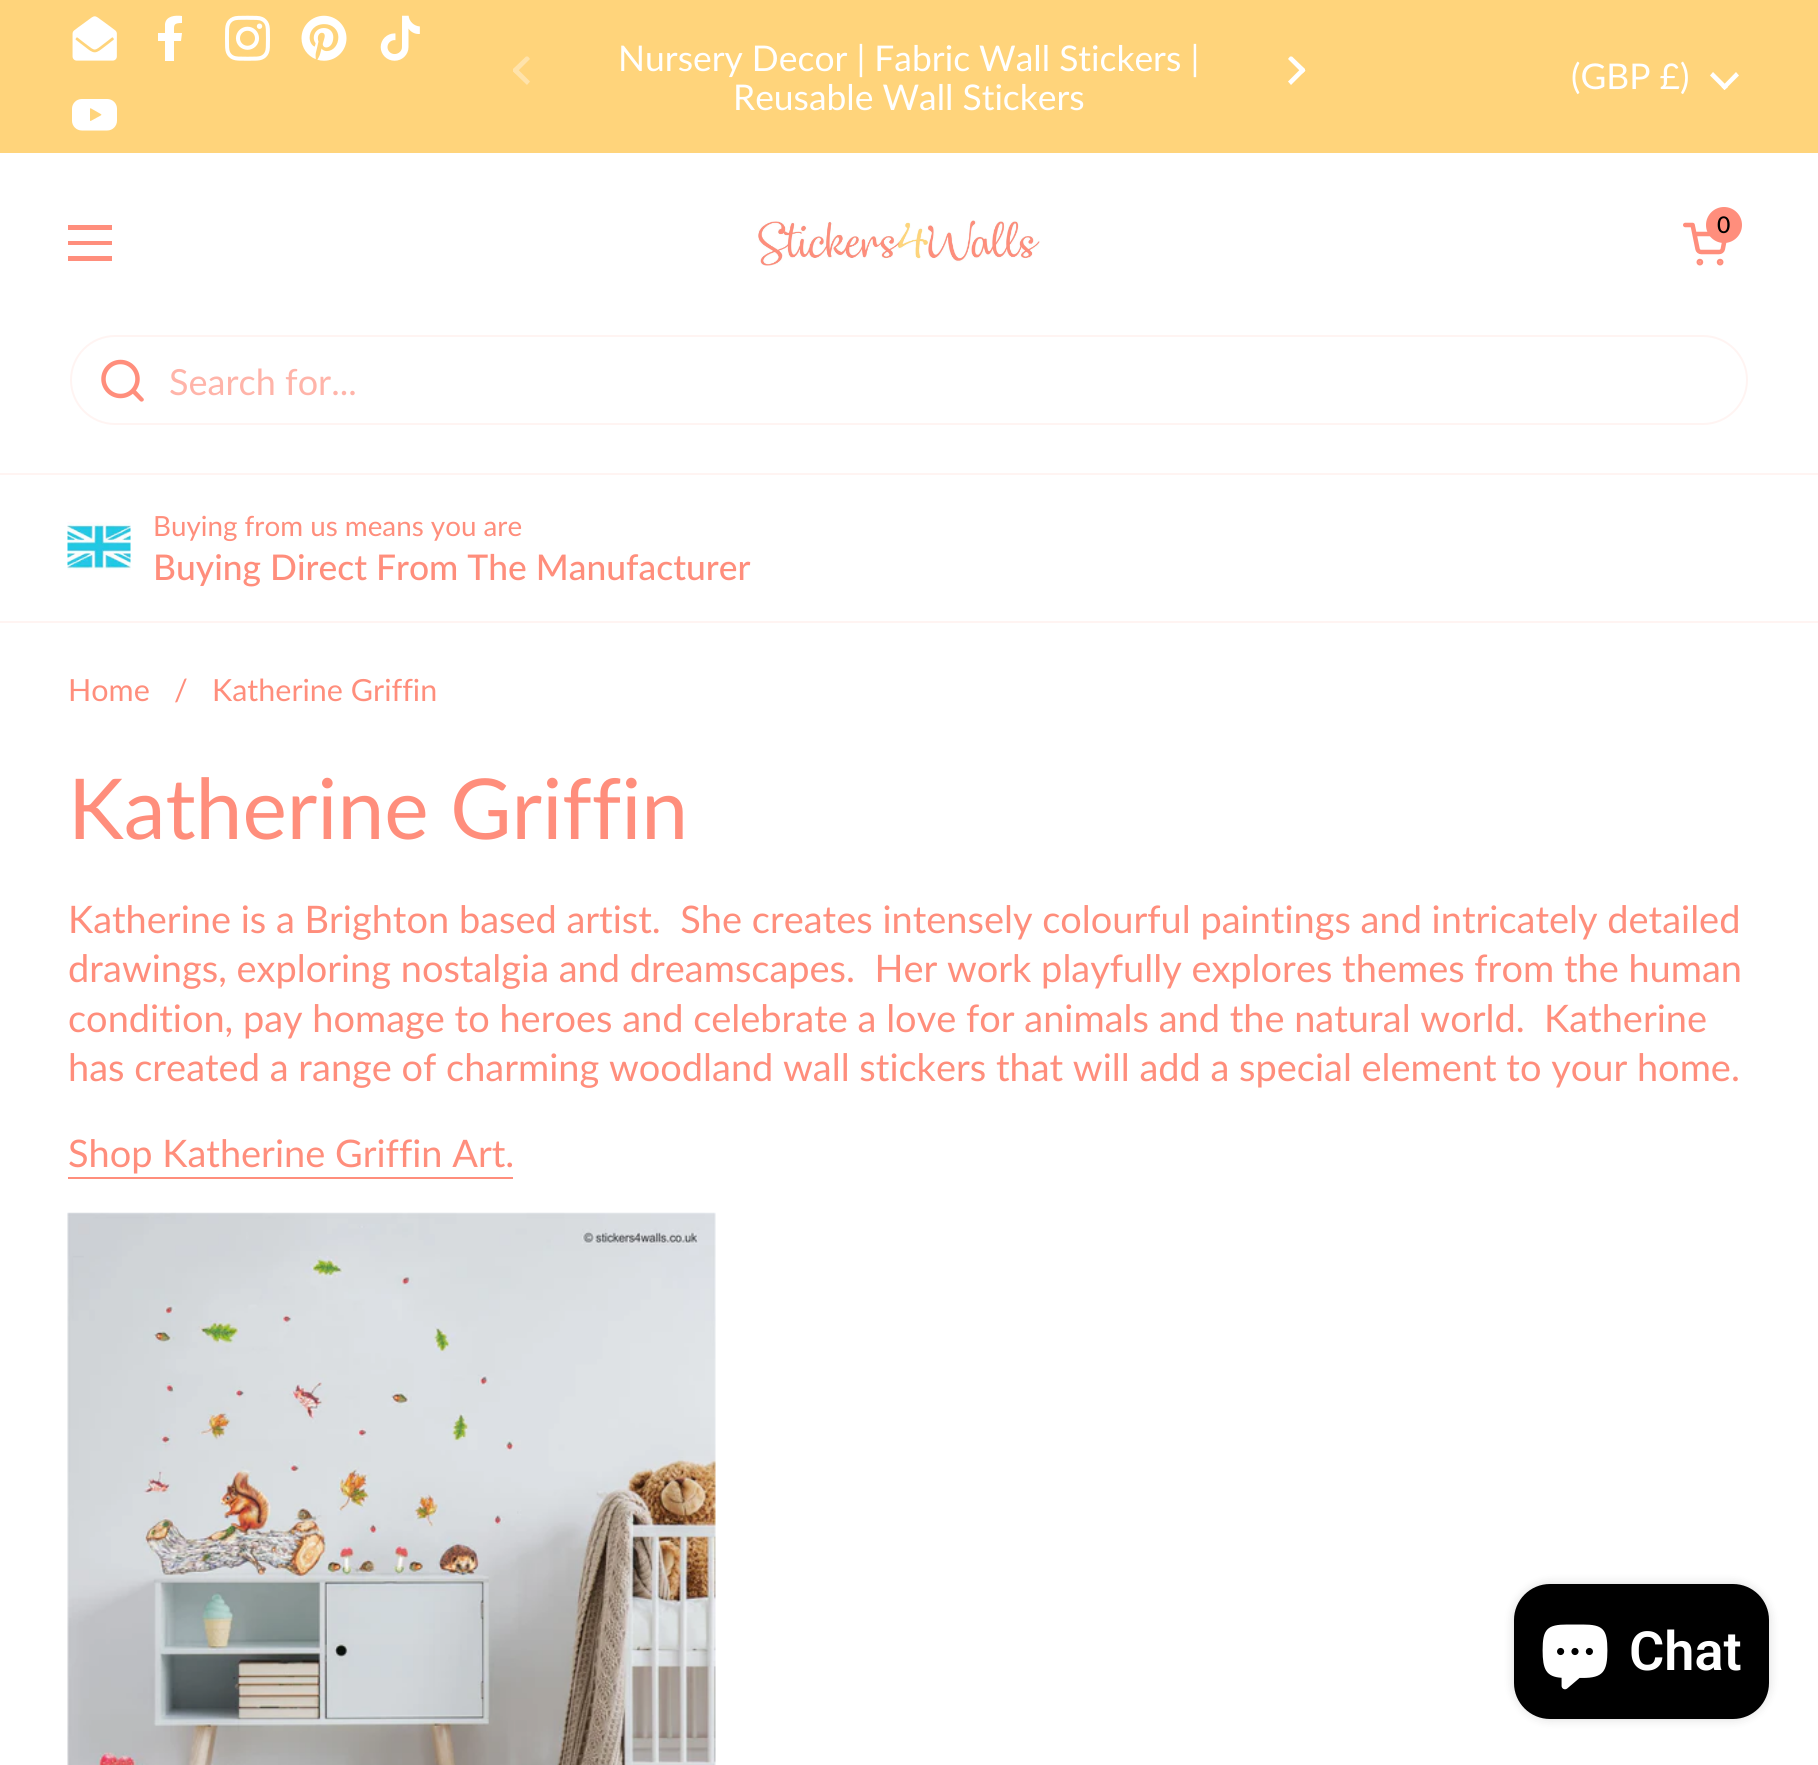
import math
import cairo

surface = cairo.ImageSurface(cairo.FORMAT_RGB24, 1818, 1765)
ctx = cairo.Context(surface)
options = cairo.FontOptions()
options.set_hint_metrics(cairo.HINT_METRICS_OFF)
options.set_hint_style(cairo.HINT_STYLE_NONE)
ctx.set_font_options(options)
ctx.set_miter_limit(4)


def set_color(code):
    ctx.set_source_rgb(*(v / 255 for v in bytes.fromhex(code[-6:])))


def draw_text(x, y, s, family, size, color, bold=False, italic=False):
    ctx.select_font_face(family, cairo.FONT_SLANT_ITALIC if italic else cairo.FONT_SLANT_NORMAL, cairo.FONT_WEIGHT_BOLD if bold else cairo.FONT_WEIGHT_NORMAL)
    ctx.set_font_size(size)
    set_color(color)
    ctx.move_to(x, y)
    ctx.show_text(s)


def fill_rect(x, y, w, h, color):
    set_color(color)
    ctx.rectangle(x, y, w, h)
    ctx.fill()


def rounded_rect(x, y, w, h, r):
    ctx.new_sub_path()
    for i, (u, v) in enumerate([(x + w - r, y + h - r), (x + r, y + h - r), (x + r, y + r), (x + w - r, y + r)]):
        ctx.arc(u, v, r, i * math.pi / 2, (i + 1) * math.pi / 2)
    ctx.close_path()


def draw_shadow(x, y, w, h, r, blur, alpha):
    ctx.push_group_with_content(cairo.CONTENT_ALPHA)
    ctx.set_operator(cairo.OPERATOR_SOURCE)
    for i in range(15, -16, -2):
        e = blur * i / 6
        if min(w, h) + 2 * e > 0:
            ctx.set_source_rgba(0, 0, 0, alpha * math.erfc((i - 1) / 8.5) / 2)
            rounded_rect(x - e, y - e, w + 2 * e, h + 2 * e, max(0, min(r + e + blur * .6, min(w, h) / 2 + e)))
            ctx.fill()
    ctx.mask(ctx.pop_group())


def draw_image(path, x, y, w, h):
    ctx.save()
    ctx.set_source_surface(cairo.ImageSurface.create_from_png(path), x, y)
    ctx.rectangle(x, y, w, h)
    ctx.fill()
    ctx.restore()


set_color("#ffffff")
ctx.paint()
fill_rect(0, 0, 1818, 153, "#ffd47b")
draw_image("assets/img1.png", 72, 16, 45, 45)
set_color("#ffffff")
ctx.new_path()
ctx.move_to(181, 41)
ctx.line_to(182, 33)
ctx.line_to(174, 33)
ctx.curve_to(174, 25, 173, 23, 182, 23)
ctx.line_to(182, 16)
ctx.curve_to(175, 15, 166, 16, 165, 24)
ctx.line_to(165, 33)
ctx.line_to(158, 33)
ctx.line_to(158, 41)
ctx.line_to(165, 41)
ctx.line_to(165, 61)
ctx.line_to(174, 61)
ctx.line_to(174, 41)
ctx.close_path()
ctx.fill()
draw_image("assets/img2.png", 225, 15, 45, 46)
draw_image("assets/img3.png", 301, 15, 46, 46)
draw_image("assets/img4.png", 380, 15, 40, 46)
draw_image("assets/img5.png", 72, 99, 45, 32)
set_color("#ffe3ab")
ctx.new_path()
ctx.move_to(530, 59)
ctx.line_to(528, 56.5)
ctx.line_to(526, 56.5)
ctx.line_to(513, 69)
ctx.line_to(513, 71)
ctx.line_to(515.5, 73.5)
ctx.close_path()
ctx.fill()
ctx.new_path()
ctx.move_to(527, 85)
ctx.line_to(513, 71.5)
ctx.line_to(513, 69.5)
ctx.line_to(515.5, 67)
ctx.line_to(530, 81.5)
ctx.close_path()
ctx.fill()
draw_text(618, 71, "Nursery Decor | Fabric Wall Stickers |", "Lato", 35.4, "#ffffff")
draw_text(733, 110, "Reusable Wall Stickers", "Lato", 35.4, "#ffffff")
ctx.new_path()
ctx.move_to(1288, 81.5)
ctx.line_to(1302.5, 67)
ctx.line_to(1305.5, 70.5)
ctx.line_to(1291, 85)
ctx.close_path()
ctx.fill()
ctx.new_path()
ctx.move_to(1305, 71)
ctx.line_to(1302.5, 73.5)
ctx.line_to(1288, 59)
ctx.line_to(1290, 56.5)
ctx.line_to(1292, 56.5)
ctx.line_to(1305, 69)
ctx.close_path()
ctx.fill()
draw_text(1571, 89, "(GBP £)", "Lato", 35.4, "#ffffff")
ctx.new_path()
ctx.move_to(1713, 72)
ctx.line_to(1728, 87)
ctx.line_to(1724.5, 90)
ctx.line_to(1710, 75.5)
ctx.close_path()
ctx.fill()
ctx.new_path()
ctx.move_to(1739, 75.5)
ctx.line_to(1724.5, 90)
ctx.line_to(1721.5, 87)
ctx.line_to(1736, 72)
ctx.close_path()
ctx.fill()
fill_rect(68, 225, 44, 5, "#ff8e7c")
fill_rect(68, 241, 44, 4, "#ff8e7c")
fill_rect(68, 256, 44, 5, "#ff8e7c")
draw_image("assets/img6.png", 758, 220, 282, 46)
draw_image("assets/img7.png", 1683, 222, 44, 44)
ctx.arc(1724, 225, 18, 0, 2 * math.pi)
ctx.fill()
draw_text(1717, 233, "0", "Lato Medium", 23, "#000000")
fill_rect(0, 473, 1818, 2, "#fff4f2")
rounded_rect(71, 336, 1676, 88, 44)
ctx.stroke()
ctx.arc(120.5, 379, 17, 0, 2 * math.pi)
set_color("#ff8e7c")
ctx.set_line_width(4.5)
ctx.stroke()
ctx.new_path()
ctx.move_to(135.5, 390)
ctx.line_to(133.5, 388.5)
ctx.line_to(130.5, 391.5)
ctx.line_to(132, 393)
ctx.close_path()
ctx.move_to(140, 401)
ctx.curve_to(142, 403, 145.5, 400, 143, 398)
ctx.close_path()
ctx.move_to(132, 393)
ctx.line_to(140, 401)
ctx.line_to(143, 398)
ctx.line_to(135.5, 390)
ctx.close_path()
ctx.fill()
draw_text(169, 395, "Search for...", "Lato", 36, "#ffb4a9")
fill_rect(0, 621, 1818, 2, "#fff4f2")
draw_image("assets/img8.png", 67, 522, 64, 48)
draw_text(153, 536, "Buying from us means you are", "Lato", 27.8, "#ff8e7c")
draw_text(153, 580, "Buying Direct From The Manufacturer", "Lato Medium", 35.4, "#ff8e7c")
draw_text(68, 701, "Home", "Lato", 30.5, "#ff8e7c")
draw_text(174, 701, "/", "Lato", 30.5, "#ff8e7c")
draw_text(212, 701, "Katherine Griffin", "Lato", 30.5, "#ff8e7c")
draw_text(68, 839, "Katherine Griffin", "Lato", 84, "#ff8e7c")
draw_text(68, 933, "Katherine is a Brighton based artist.  She creates intensely colourful paintings and intricately detailed", "Lato", 37.95, "#ff8e7c")
draw_text(68, 982, "drawings, exploring nostalgia and dreamscapes.  Her work playfully explores themes from the human", "Lato", 37.95, "#ff8e7c")
draw_text(68, 1032, "condition, pay homage to heroes and celebrate a love for animals and the natural world.  Katherine", "Lato", 37.95, "#ff8e7c")
draw_text(68, 1081, "has created a range of charming woodland wall stickers that will add a special element to your home.", "Lato", 37.95, "#ff8e7c")
draw_text(68, 1167, "Shop Katherine Griffin Art.", "Lato", 37.95, "#ff8e7c")
fill_rect(68, 1177, 445, 2, "#ff8e7c")
draw_image("assets/img9.png", 67, 1212, 649, 553)
set_color("#000000")
draw_shadow(1514, 1584, 255, 135, 36, 5.5, 0.15)
set_color("#000000")
rounded_rect(1514, 1584, 255, 135, 36)
ctx.fill()
draw_image("assets/img10.png", 1542, 1624, 66, 66)
draw_text(1629, 1670, "Chat", "Roboto SemiBold", 54, "#ffffff")
surface.write_to_png("output.png")
